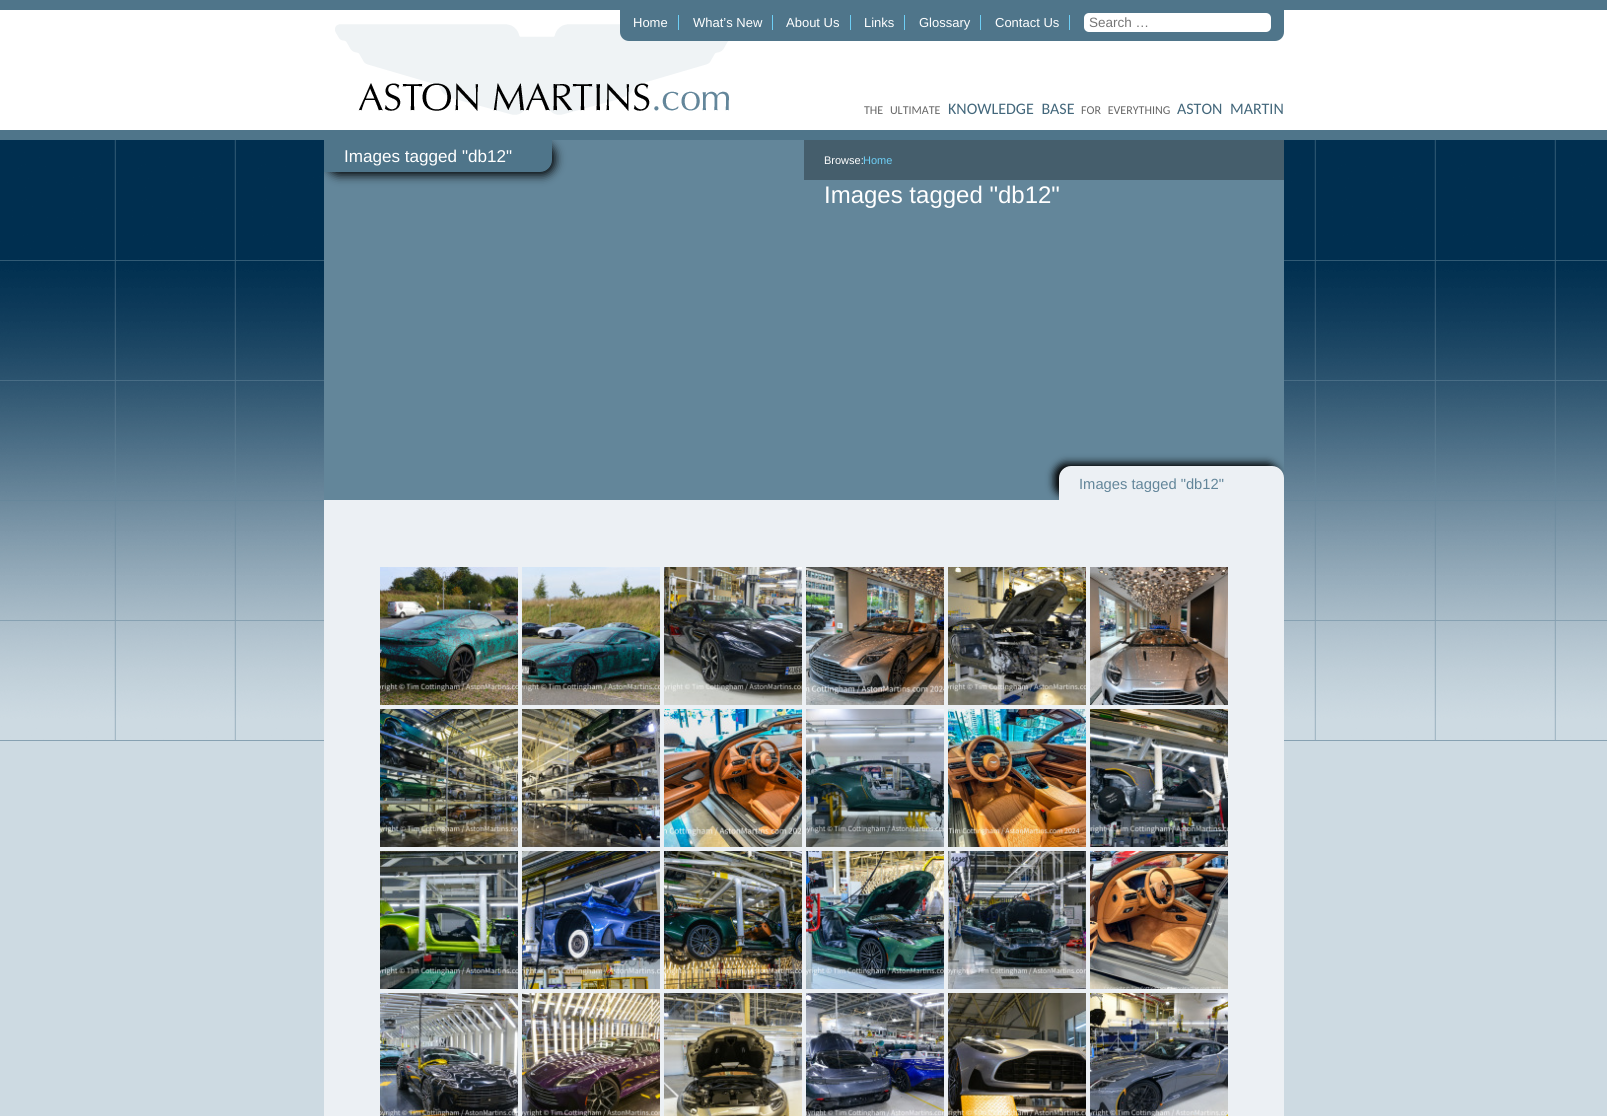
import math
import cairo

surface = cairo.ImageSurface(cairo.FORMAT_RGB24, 1607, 1116)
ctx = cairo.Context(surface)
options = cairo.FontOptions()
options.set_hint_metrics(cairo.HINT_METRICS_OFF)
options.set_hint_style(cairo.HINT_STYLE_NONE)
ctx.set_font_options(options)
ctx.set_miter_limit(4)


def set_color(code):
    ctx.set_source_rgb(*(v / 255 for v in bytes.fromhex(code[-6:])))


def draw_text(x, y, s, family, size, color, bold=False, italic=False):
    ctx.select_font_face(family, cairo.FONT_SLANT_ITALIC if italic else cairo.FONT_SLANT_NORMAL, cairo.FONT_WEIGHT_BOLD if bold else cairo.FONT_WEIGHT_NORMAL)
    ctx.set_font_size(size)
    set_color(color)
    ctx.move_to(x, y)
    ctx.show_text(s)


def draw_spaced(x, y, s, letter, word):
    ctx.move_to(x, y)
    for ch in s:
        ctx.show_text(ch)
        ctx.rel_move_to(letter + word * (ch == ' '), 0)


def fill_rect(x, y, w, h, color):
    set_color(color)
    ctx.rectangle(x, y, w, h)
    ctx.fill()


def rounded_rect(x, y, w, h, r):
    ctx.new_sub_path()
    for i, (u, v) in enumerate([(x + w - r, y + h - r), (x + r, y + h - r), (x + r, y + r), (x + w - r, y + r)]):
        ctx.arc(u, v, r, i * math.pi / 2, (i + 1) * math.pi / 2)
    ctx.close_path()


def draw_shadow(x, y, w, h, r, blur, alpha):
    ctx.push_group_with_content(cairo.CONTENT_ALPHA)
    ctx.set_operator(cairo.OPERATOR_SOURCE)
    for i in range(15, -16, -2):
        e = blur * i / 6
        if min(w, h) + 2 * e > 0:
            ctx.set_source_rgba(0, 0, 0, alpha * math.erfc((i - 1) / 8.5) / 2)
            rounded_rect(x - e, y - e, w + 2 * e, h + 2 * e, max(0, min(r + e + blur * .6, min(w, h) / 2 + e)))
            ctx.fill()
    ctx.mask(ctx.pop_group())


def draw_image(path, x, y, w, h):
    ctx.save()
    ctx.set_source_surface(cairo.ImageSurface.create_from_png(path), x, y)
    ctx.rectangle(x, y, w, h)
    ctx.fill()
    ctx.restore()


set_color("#ffffff")
ctx.paint()
fill_rect(0, 0, 1607, 10, "#4f758a")
draw_image("assets/img1.png", 335, 24, 404, 91)
ctx.new_path()
ctx.move_to(620, 10)
ctx.line_to(1284, 10)
ctx.line_to(1284, 32)
ctx.curve_to(1284, 37, 1280, 41, 1275, 41)
ctx.line_to(629, 41)
ctx.curve_to(624, 41, 620, 37, 620, 32)
ctx.close_path()
ctx.fill()
draw_text(633, 27, "Home", "Liberation Sans", 13, "#ffffff")
fill_rect(678, 15, 1, 15, "#6dcff6")
draw_text(693, 27, "What’s New", "Liberation Sans", 13, "#ffffff")
fill_rect(772, 15, 1, 15, "#6dcff6")
draw_text(786, 27, "About Us", "Liberation Sans", 13, "#ffffff")
fill_rect(850, 15, 1, 15, "#6dcff6")
draw_text(864, 27, "Links", "Liberation Sans", 13, "#ffffff")
fill_rect(904, 15, 1, 15, "#6dcff6")
draw_text(919, 27, "Glossary", "Liberation Sans", 13, "#ffffff")
fill_rect(980, 15, 1, 15, "#6dcff6")
draw_text(995, 27, "Contact Us", "Liberation Sans", 13, "#ffffff")
fill_rect(1069, 15, 1, 15, "#6dcff6")
set_color("#ffffff")
rounded_rect(1084, 13, 187, 19, 5)
ctx.fill()
draw_text(1089, 27, "Search …", "Liberation Sans", 13.5, "#757575")
ctx.select_font_face("Carlito")
ctx.set_font_size(12)
set_color("#666666")
draw_spaced(864, 114, "THE ULTIMATE", 0, 4)
ctx.set_font_size(16)
set_color("#43677b")
draw_spaced(948, 114, "KNOWLEDGE BASE", 0, 4)
ctx.set_font_size(12)
set_color("#666666")
draw_spaced(1081, 114, "FOR EVERYTHING", 0, 4)
ctx.set_font_size(16)
set_color("#43677b")
draw_spaced(1177, 114, "ASTON MARTIN", 0, 4)
fill_rect(0, 741, 1607, 375, "#cddae2")
draw_image("assets/img2.png", 0, 140, 1607, 601)
fill_rect(0, 130, 1607, 10, "#4f758a")
fill_rect(324, 140, 960, 360, "#63869a")
ctx.save()
ctx.rectangle(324, 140, 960, 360)
ctx.clip()
set_color("#000000")
draw_shadow(327, 143, 228, 32, 12, 5, 1)
ctx.restore()
set_color("#4f758a")
ctx.new_path()
ctx.move_to(324, 140)
ctx.line_to(552, 140)
ctx.line_to(552, 160)
ctx.curve_to(552, 166.5, 546.5, 172, 540, 172)
ctx.line_to(324, 172)
ctx.close_path()
ctx.fill()
draw_text(344, 162, "Images tagged \"db12\"", "Liberation Sans", 17.1, "#ffffff")
fill_rect(804, 140, 480, 40, "#455e6c")
draw_text(824, 164, "Browse:", "Liberation Sans", 11, "#ffffff")
draw_text(863, 164, "Home", "Liberation Sans", 11, "#6dcff6")
draw_text(824, 203, "Images tagged \"db12\"", "Liberation Sans", 24, "#ffffff")
ctx.save()
ctx.rectangle(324, 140, 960, 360)
ctx.clip()
set_color("#000000")
draw_shadow(1054, 463, 225, 34, 12, 4, 1)
ctx.restore()
set_color("#ecf0f4")
ctx.new_path()
ctx.move_to(1071, 466)
ctx.line_to(1272, 466)
ctx.curve_to(1278.5, 466, 1284, 471.5, 1284, 478)
ctx.line_to(1284, 500)
ctx.line_to(1059, 500)
ctx.line_to(1059, 478)
ctx.curve_to(1059, 471.5, 1064.5, 466, 1071, 466)
ctx.close_path()
ctx.fill()
draw_text(1079, 489, "Images tagged \"db12\"", "Liberation Sans", 14.75, "#63869a")
fill_rect(324, 500, 960, 616, "#ecf0f4")
draw_image("assets/img3.png", 380, 567, 138, 138)
draw_image("assets/img4.png", 522, 567, 138, 138)
draw_image("assets/img5.png", 664, 567, 138, 138)
draw_image("assets/img6.png", 806, 567, 138, 138)
draw_image("assets/img7.png", 948, 567, 138, 138)
draw_image("assets/img8.png", 1090, 567, 138, 138)
draw_image("assets/img9.png", 380, 709, 138, 138)
draw_image("assets/img10.png", 522, 709, 138, 138)
draw_image("assets/img11.png", 664, 709, 138, 138)
draw_image("assets/img12.png", 806, 709, 138, 138)
draw_image("assets/img13.png", 948, 709, 138, 138)
draw_image("assets/img14.png", 1090, 709, 138, 138)
draw_image("assets/img15.png", 380, 851, 138, 138)
draw_image("assets/img16.png", 522, 851, 138, 138)
draw_image("assets/img17.png", 664, 851, 138, 138)
draw_image("assets/img18.png", 806, 851, 138, 138)
draw_image("assets/img19.png", 948, 851, 138, 138)
draw_image("assets/img20.png", 1090, 851, 138, 138)
draw_image("assets/img21.png", 380, 993, 138, 123)
draw_image("assets/img22.png", 522, 993, 138, 123)
draw_image("assets/img23.png", 664, 993, 138, 123)
draw_image("assets/img24.png", 806, 993, 138, 123)
draw_image("assets/img25.png", 948, 993, 138, 123)
draw_image("assets/img26.png", 1090, 993, 138, 123)
surface.write_to_png("output.png")
